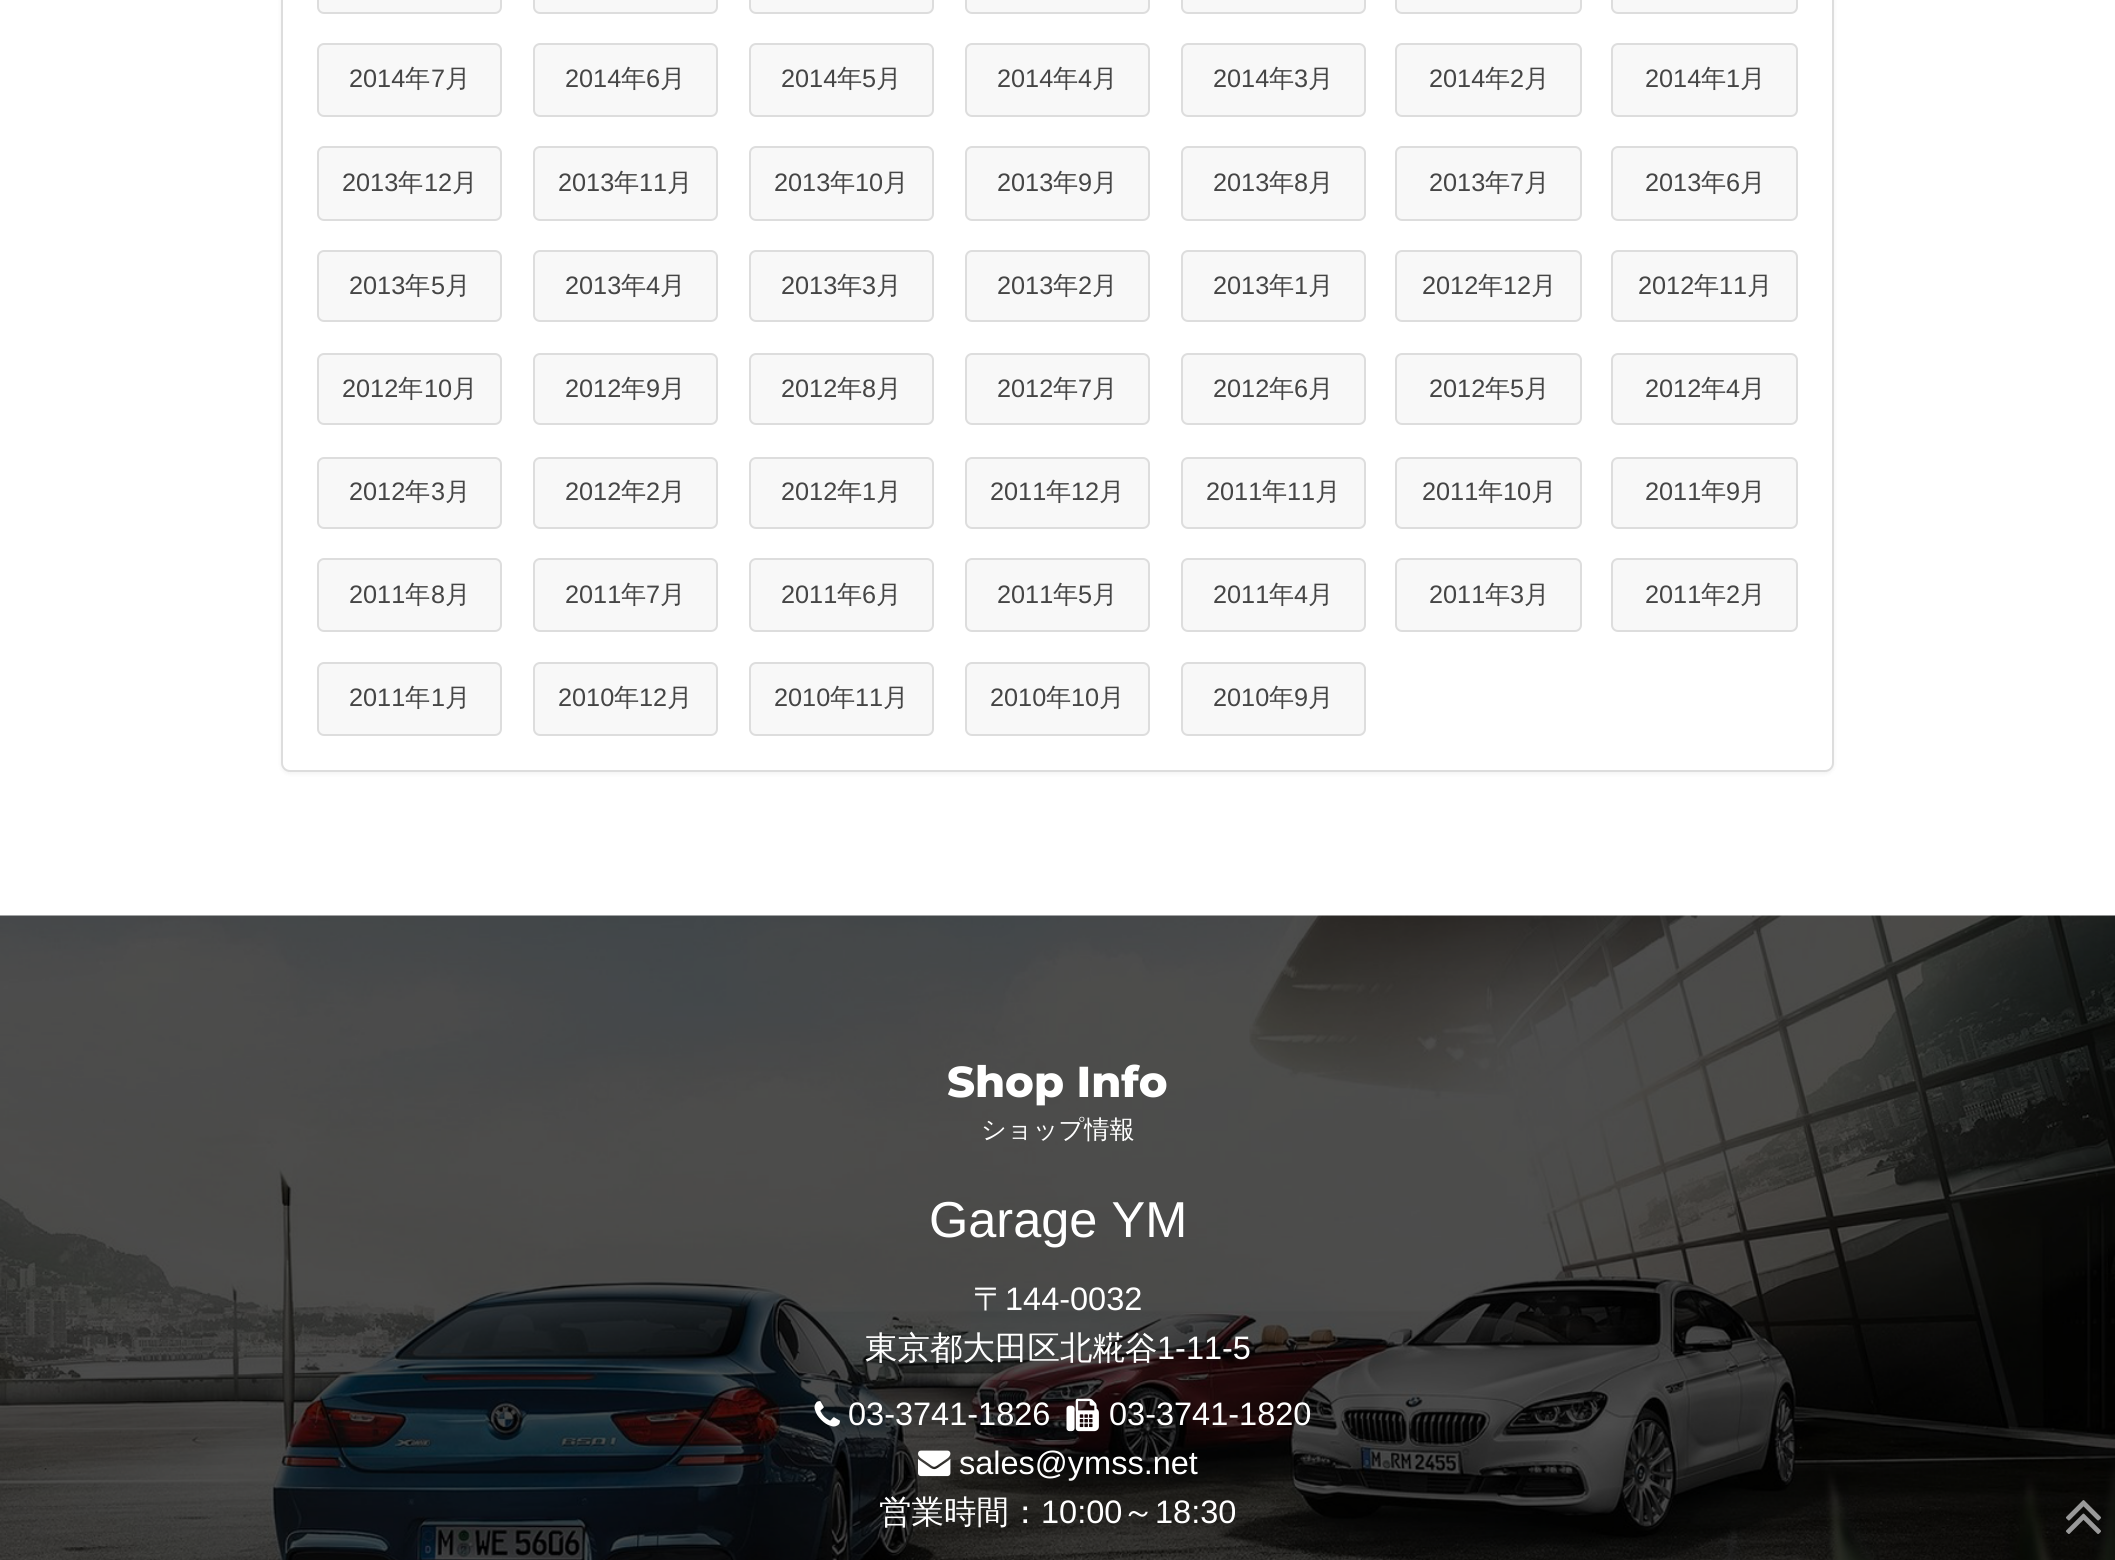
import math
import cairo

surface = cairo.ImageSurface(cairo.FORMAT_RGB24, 2115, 1560)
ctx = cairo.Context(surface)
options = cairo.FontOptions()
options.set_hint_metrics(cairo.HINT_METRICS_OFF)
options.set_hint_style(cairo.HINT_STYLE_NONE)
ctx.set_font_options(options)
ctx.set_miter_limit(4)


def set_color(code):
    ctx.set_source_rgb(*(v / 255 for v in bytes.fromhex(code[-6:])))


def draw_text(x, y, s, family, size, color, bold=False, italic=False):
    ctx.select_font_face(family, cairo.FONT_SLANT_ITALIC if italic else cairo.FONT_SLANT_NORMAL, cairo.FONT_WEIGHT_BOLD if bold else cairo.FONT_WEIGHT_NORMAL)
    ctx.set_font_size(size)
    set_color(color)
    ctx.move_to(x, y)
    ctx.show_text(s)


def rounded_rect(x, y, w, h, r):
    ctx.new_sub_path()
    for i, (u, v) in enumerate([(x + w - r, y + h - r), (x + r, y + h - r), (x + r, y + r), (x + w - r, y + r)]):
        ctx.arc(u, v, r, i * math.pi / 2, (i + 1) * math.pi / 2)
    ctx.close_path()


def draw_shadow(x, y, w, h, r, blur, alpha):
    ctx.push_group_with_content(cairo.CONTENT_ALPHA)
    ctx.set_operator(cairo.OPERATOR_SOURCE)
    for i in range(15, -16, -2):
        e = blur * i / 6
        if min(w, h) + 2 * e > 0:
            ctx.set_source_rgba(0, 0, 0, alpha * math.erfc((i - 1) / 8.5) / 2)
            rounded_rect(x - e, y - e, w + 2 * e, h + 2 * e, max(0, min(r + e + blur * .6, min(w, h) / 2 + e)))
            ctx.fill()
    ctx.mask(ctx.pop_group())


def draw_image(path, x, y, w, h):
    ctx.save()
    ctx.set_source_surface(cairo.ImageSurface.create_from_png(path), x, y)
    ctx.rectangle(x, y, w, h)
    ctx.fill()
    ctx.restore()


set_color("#ffffff")
ctx.paint()
set_color("#000000")
draw_shadow(281, -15, 1553, 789, 9, 2, 0.05)
set_color("#ffffff")
rounded_rect(282, -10, 1551, 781, 8)
ctx.fill_preserve()
set_color("#dddddd")
ctx.stroke()
set_color("#f8f8f8")
rounded_rect(318, -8, 183, 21, 6)
ctx.fill_preserve()
set_color("#dddddd")
ctx.stroke()
set_color("#f8f8f8")
rounded_rect(534, -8, 183, 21, 6)
ctx.fill_preserve()
set_color("#dddddd")
ctx.stroke()
set_color("#f8f8f8")
rounded_rect(750, -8, 183, 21, 6)
ctx.fill_preserve()
set_color("#dddddd")
ctx.stroke()
set_color("#f8f8f8")
rounded_rect(966, -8, 183, 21, 6)
ctx.fill_preserve()
set_color("#dddddd")
ctx.stroke()
set_color("#f8f8f8")
rounded_rect(1182, -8, 183, 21, 6)
ctx.fill_preserve()
set_color("#dddddd")
ctx.stroke()
set_color("#f8f8f8")
rounded_rect(1396, -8, 185, 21, 6)
ctx.fill_preserve()
set_color("#dddddd")
ctx.stroke()
set_color("#f8f8f8")
rounded_rect(1612, -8, 185, 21, 6)
ctx.fill_preserve()
set_color("#dddddd")
ctx.stroke()
set_color("#f8f8f8")
rounded_rect(318, 44, 183, 72, 6)
ctx.fill_preserve()
set_color("#dddddd")
ctx.stroke()
draw_text(349, 87, "2014", "Liberation Sans", 25.25, "#454545")
draw_text(405, 87, "年", "WenQuanYi Zen Hei Medium", 25.25, "#454545")
draw_text(431, 87, "7", "Liberation Sans", 25.25, "#454545")
draw_text(445, 87, "月", "WenQuanYi Zen Hei Medium", 25.25, "#454545")
set_color("#f8f8f8")
rounded_rect(534, 44, 183, 72, 6)
ctx.fill_preserve()
set_color("#dddddd")
ctx.stroke()
draw_text(565, 87, "2014", "Liberation Sans", 25.25, "#454545")
draw_text(621, 87, "年", "WenQuanYi Zen Hei Medium", 25.25, "#454545")
draw_text(646, 87, "6", "Liberation Sans", 25.25, "#454545")
draw_text(660, 87, "月", "WenQuanYi Zen Hei Medium", 25.25, "#454545")
set_color("#f8f8f8")
rounded_rect(750, 44, 183, 72, 6)
ctx.fill_preserve()
set_color("#dddddd")
ctx.stroke()
draw_text(781, 87, "2014", "Liberation Sans", 25.25, "#454545")
draw_text(837, 87, "年", "WenQuanYi Zen Hei Medium", 25.25, "#454545")
draw_text(862, 87, "5", "Liberation Sans", 25.25, "#454545")
draw_text(876, 87, "月", "WenQuanYi Zen Hei Medium", 25.25, "#454545")
set_color("#f8f8f8")
rounded_rect(966, 44, 183, 72, 6)
ctx.fill_preserve()
set_color("#dddddd")
ctx.stroke()
draw_text(997, 87, "2014", "Liberation Sans", 25.25, "#454545")
draw_text(1053, 87, "年", "WenQuanYi Zen Hei Medium", 25.25, "#454545")
draw_text(1078, 87, "4", "Liberation Sans", 25.25, "#454545")
draw_text(1092, 87, "月", "WenQuanYi Zen Hei Medium", 25.25, "#454545")
set_color("#f8f8f8")
rounded_rect(1182, 44, 183, 72, 6)
ctx.fill_preserve()
set_color("#dddddd")
ctx.stroke()
draw_text(1213, 87, "2014", "Liberation Sans", 25.25, "#454545")
draw_text(1269, 87, "年", "WenQuanYi Zen Hei Medium", 25.25, "#454545")
draw_text(1294, 87, "3", "Liberation Sans", 25.25, "#454545")
draw_text(1308, 87, "月", "WenQuanYi Zen Hei Medium", 25.25, "#454545")
set_color("#f8f8f8")
rounded_rect(1396, 44, 185, 72, 6)
ctx.fill_preserve()
set_color("#dddddd")
ctx.stroke()
draw_text(1429, 87, "2014", "Liberation Sans", 25.25, "#454545")
draw_text(1485, 87, "年", "WenQuanYi Zen Hei Medium", 25.25, "#454545")
draw_text(1510, 87, "2", "Liberation Sans", 25.25, "#454545")
draw_text(1524, 87, "月", "WenQuanYi Zen Hei Medium", 25.25, "#454545")
set_color("#f8f8f8")
rounded_rect(1612, 44, 185, 72, 6)
ctx.fill_preserve()
set_color("#dddddd")
ctx.stroke()
draw_text(1645, 87, "2014", "Liberation Sans", 25.25, "#454545")
draw_text(1701, 87, "年", "WenQuanYi Zen Hei Medium", 25.25, "#454545")
draw_text(1726, 87, "1", "Liberation Sans", 25.25, "#454545")
draw_text(1740, 87, "月", "WenQuanYi Zen Hei Medium", 25.25, "#454545")
set_color("#f8f8f8")
rounded_rect(318, 147, 183, 73, 6)
ctx.fill_preserve()
set_color("#dddddd")
ctx.stroke()
draw_text(342, 191, "2013", "Liberation Sans", 25.25, "#454545")
draw_text(398, 191, "年", "WenQuanYi Zen Hei Medium", 25.25, "#454545")
draw_text(424, 191, "12", "Liberation Sans", 25.25, "#454545")
draw_text(452, 191, "月", "WenQuanYi Zen Hei Medium", 25.25, "#454545")
set_color("#f8f8f8")
rounded_rect(534, 147, 183, 73, 6)
ctx.fill_preserve()
set_color("#dddddd")
ctx.stroke()
draw_text(558, 191, "2013", "Liberation Sans", 25.25, "#454545")
draw_text(614, 191, "年", "WenQuanYi Zen Hei Medium", 25.25, "#454545")
draw_text(639, 191, "11", "Liberation Sans", 25.25, "#454545")
draw_text(667, 191, "月", "WenQuanYi Zen Hei Medium", 25.25, "#454545")
set_color("#f8f8f8")
rounded_rect(750, 147, 183, 73, 6)
ctx.fill_preserve()
set_color("#dddddd")
ctx.stroke()
draw_text(774, 191, "2013", "Liberation Sans", 25.25, "#454545")
draw_text(830, 191, "年", "WenQuanYi Zen Hei Medium", 25.25, "#454545")
draw_text(855, 191, "10", "Liberation Sans", 25.25, "#454545")
draw_text(883, 191, "月", "WenQuanYi Zen Hei Medium", 25.25, "#454545")
set_color("#f8f8f8")
rounded_rect(966, 147, 183, 73, 6)
ctx.fill_preserve()
set_color("#dddddd")
ctx.stroke()
draw_text(997, 191, "2013", "Liberation Sans", 25.25, "#454545")
draw_text(1053, 191, "年", "WenQuanYi Zen Hei Medium", 25.25, "#454545")
draw_text(1078, 191, "9", "Liberation Sans", 25.25, "#454545")
draw_text(1092, 191, "月", "WenQuanYi Zen Hei Medium", 25.25, "#454545")
set_color("#f8f8f8")
rounded_rect(1182, 147, 183, 73, 6)
ctx.fill_preserve()
set_color("#dddddd")
ctx.stroke()
draw_text(1213, 191, "2013", "Liberation Sans", 25.25, "#454545")
draw_text(1269, 191, "年", "WenQuanYi Zen Hei Medium", 25.25, "#454545")
draw_text(1294, 191, "8", "Liberation Sans", 25.25, "#454545")
draw_text(1308, 191, "月", "WenQuanYi Zen Hei Medium", 25.25, "#454545")
set_color("#f8f8f8")
rounded_rect(1396, 147, 185, 73, 6)
ctx.fill_preserve()
set_color("#dddddd")
ctx.stroke()
draw_text(1429, 191, "2013", "Liberation Sans", 25.25, "#454545")
draw_text(1485, 191, "年", "WenQuanYi Zen Hei Medium", 25.25, "#454545")
draw_text(1510, 191, "7", "Liberation Sans", 25.25, "#454545")
draw_text(1524, 191, "月", "WenQuanYi Zen Hei Medium", 25.25, "#454545")
set_color("#f8f8f8")
rounded_rect(1612, 147, 185, 73, 6)
ctx.fill_preserve()
set_color("#dddddd")
ctx.stroke()
draw_text(1645, 191, "2013", "Liberation Sans", 25.25, "#454545")
draw_text(1701, 191, "年", "WenQuanYi Zen Hei Medium", 25.25, "#454545")
draw_text(1726, 191, "6", "Liberation Sans", 25.25, "#454545")
draw_text(1740, 191, "月", "WenQuanYi Zen Hei Medium", 25.25, "#454545")
set_color("#f8f8f8")
rounded_rect(318, 251, 183, 70, 6)
ctx.fill_preserve()
set_color("#dddddd")
ctx.stroke()
draw_text(349, 294, "2013", "Liberation Sans", 25.25, "#454545")
draw_text(405, 294, "年", "WenQuanYi Zen Hei Medium", 25.25, "#454545")
draw_text(431, 294, "5", "Liberation Sans", 25.25, "#454545")
draw_text(445, 294, "月", "WenQuanYi Zen Hei Medium", 25.25, "#454545")
set_color("#f8f8f8")
rounded_rect(534, 251, 183, 70, 6)
ctx.fill_preserve()
set_color("#dddddd")
ctx.stroke()
draw_text(565, 294, "2013", "Liberation Sans", 25.25, "#454545")
draw_text(621, 294, "年", "WenQuanYi Zen Hei Medium", 25.25, "#454545")
draw_text(646, 294, "4", "Liberation Sans", 25.25, "#454545")
draw_text(660, 294, "月", "WenQuanYi Zen Hei Medium", 25.25, "#454545")
set_color("#f8f8f8")
rounded_rect(750, 251, 183, 70, 6)
ctx.fill_preserve()
set_color("#dddddd")
ctx.stroke()
draw_text(781, 294, "2013", "Liberation Sans", 25.25, "#454545")
draw_text(837, 294, "年", "WenQuanYi Zen Hei Medium", 25.25, "#454545")
draw_text(862, 294, "3", "Liberation Sans", 25.25, "#454545")
draw_text(876, 294, "月", "WenQuanYi Zen Hei Medium", 25.25, "#454545")
set_color("#f8f8f8")
rounded_rect(966, 251, 183, 70, 6)
ctx.fill_preserve()
set_color("#dddddd")
ctx.stroke()
draw_text(997, 294, "2013", "Liberation Sans", 25.25, "#454545")
draw_text(1053, 294, "年", "WenQuanYi Zen Hei Medium", 25.25, "#454545")
draw_text(1078, 294, "2", "Liberation Sans", 25.25, "#454545")
draw_text(1092, 294, "月", "WenQuanYi Zen Hei Medium", 25.25, "#454545")
set_color("#f8f8f8")
rounded_rect(1182, 251, 183, 70, 6)
ctx.fill_preserve()
set_color("#dddddd")
ctx.stroke()
draw_text(1213, 294, "2013", "Liberation Sans", 25.25, "#454545")
draw_text(1269, 294, "年", "WenQuanYi Zen Hei Medium", 25.25, "#454545")
draw_text(1294, 294, "1", "Liberation Sans", 25.25, "#454545")
draw_text(1308, 294, "月", "WenQuanYi Zen Hei Medium", 25.25, "#454545")
set_color("#f8f8f8")
rounded_rect(1396, 251, 185, 70, 6)
ctx.fill_preserve()
set_color("#dddddd")
ctx.stroke()
draw_text(1422, 294, "2012", "Liberation Sans", 25.25, "#454545")
draw_text(1478, 294, "年", "WenQuanYi Zen Hei Medium", 25.25, "#454545")
draw_text(1503, 294, "12", "Liberation Sans", 25.25, "#454545")
draw_text(1531, 294, "月", "WenQuanYi Zen Hei Medium", 25.25, "#454545")
set_color("#f8f8f8")
rounded_rect(1612, 251, 185, 70, 6)
ctx.fill_preserve()
set_color("#dddddd")
ctx.stroke()
draw_text(1638, 294, "2012", "Liberation Sans", 25.25, "#454545")
draw_text(1694, 294, "年", "WenQuanYi Zen Hei Medium", 25.25, "#454545")
draw_text(1719, 294, "11", "Liberation Sans", 25.25, "#454545")
draw_text(1747, 294, "月", "WenQuanYi Zen Hei Medium", 25.25, "#454545")
set_color("#f8f8f8")
rounded_rect(318, 354, 183, 70, 6)
ctx.fill_preserve()
set_color("#dddddd")
ctx.stroke()
draw_text(342, 397, "2012", "Liberation Sans", 25.25, "#454545")
draw_text(398, 397, "年", "WenQuanYi Zen Hei Medium", 25.25, "#454545")
draw_text(424, 397, "10", "Liberation Sans", 25.25, "#454545")
draw_text(452, 397, "月", "WenQuanYi Zen Hei Medium", 25.25, "#454545")
set_color("#f8f8f8")
rounded_rect(534, 354, 183, 70, 6)
ctx.fill_preserve()
set_color("#dddddd")
ctx.stroke()
draw_text(565, 397, "2012", "Liberation Sans", 25.25, "#454545")
draw_text(621, 397, "年", "WenQuanYi Zen Hei Medium", 25.25, "#454545")
draw_text(646, 397, "9", "Liberation Sans", 25.25, "#454545")
draw_text(660, 397, "月", "WenQuanYi Zen Hei Medium", 25.25, "#454545")
set_color("#f8f8f8")
rounded_rect(750, 354, 183, 70, 6)
ctx.fill_preserve()
set_color("#dddddd")
ctx.stroke()
draw_text(781, 397, "2012", "Liberation Sans", 25.25, "#454545")
draw_text(837, 397, "年", "WenQuanYi Zen Hei Medium", 25.25, "#454545")
draw_text(862, 397, "8", "Liberation Sans", 25.25, "#454545")
draw_text(876, 397, "月", "WenQuanYi Zen Hei Medium", 25.25, "#454545")
set_color("#f8f8f8")
rounded_rect(966, 354, 183, 70, 6)
ctx.fill_preserve()
set_color("#dddddd")
ctx.stroke()
draw_text(997, 397, "2012", "Liberation Sans", 25.25, "#454545")
draw_text(1053, 397, "年", "WenQuanYi Zen Hei Medium", 25.25, "#454545")
draw_text(1078, 397, "7", "Liberation Sans", 25.25, "#454545")
draw_text(1092, 397, "月", "WenQuanYi Zen Hei Medium", 25.25, "#454545")
set_color("#f8f8f8")
rounded_rect(1182, 354, 183, 70, 6)
ctx.fill_preserve()
set_color("#dddddd")
ctx.stroke()
draw_text(1213, 397, "2012", "Liberation Sans", 25.25, "#454545")
draw_text(1269, 397, "年", "WenQuanYi Zen Hei Medium", 25.25, "#454545")
draw_text(1294, 397, "6", "Liberation Sans", 25.25, "#454545")
draw_text(1308, 397, "月", "WenQuanYi Zen Hei Medium", 25.25, "#454545")
set_color("#f8f8f8")
rounded_rect(1396, 354, 185, 70, 6)
ctx.fill_preserve()
set_color("#dddddd")
ctx.stroke()
draw_text(1429, 397, "2012", "Liberation Sans", 25.25, "#454545")
draw_text(1485, 397, "年", "WenQuanYi Zen Hei Medium", 25.25, "#454545")
draw_text(1510, 397, "5", "Liberation Sans", 25.25, "#454545")
draw_text(1524, 397, "月", "WenQuanYi Zen Hei Medium", 25.25, "#454545")
set_color("#f8f8f8")
rounded_rect(1612, 354, 185, 70, 6)
ctx.fill_preserve()
set_color("#dddddd")
ctx.stroke()
draw_text(1645, 397, "2012", "Liberation Sans", 25.25, "#454545")
draw_text(1701, 397, "年", "WenQuanYi Zen Hei Medium", 25.25, "#454545")
draw_text(1726, 397, "4", "Liberation Sans", 25.25, "#454545")
draw_text(1740, 397, "月", "WenQuanYi Zen Hei Medium", 25.25, "#454545")
set_color("#f8f8f8")
rounded_rect(318, 458, 183, 70, 6)
ctx.fill_preserve()
set_color("#dddddd")
ctx.stroke()
draw_text(349, 500, "2012", "Liberation Sans", 25.25, "#454545")
draw_text(405, 500, "年", "WenQuanYi Zen Hei Medium", 25.25, "#454545")
draw_text(431, 500, "3", "Liberation Sans", 25.25, "#454545")
draw_text(445, 500, "月", "WenQuanYi Zen Hei Medium", 25.25, "#454545")
set_color("#f8f8f8")
rounded_rect(534, 458, 183, 70, 6)
ctx.fill_preserve()
set_color("#dddddd")
ctx.stroke()
draw_text(565, 500, "2012", "Liberation Sans", 25.25, "#454545")
draw_text(621, 500, "年", "WenQuanYi Zen Hei Medium", 25.25, "#454545")
draw_text(646, 500, "2", "Liberation Sans", 25.25, "#454545")
draw_text(660, 500, "月", "WenQuanYi Zen Hei Medium", 25.25, "#454545")
set_color("#f8f8f8")
rounded_rect(750, 458, 183, 70, 6)
ctx.fill_preserve()
set_color("#dddddd")
ctx.stroke()
draw_text(781, 500, "2012", "Liberation Sans", 25.25, "#454545")
draw_text(837, 500, "年", "WenQuanYi Zen Hei Medium", 25.25, "#454545")
draw_text(862, 500, "1", "Liberation Sans", 25.25, "#454545")
draw_text(876, 500, "月", "WenQuanYi Zen Hei Medium", 25.25, "#454545")
set_color("#f8f8f8")
rounded_rect(966, 458, 183, 70, 6)
ctx.fill_preserve()
set_color("#dddddd")
ctx.stroke()
draw_text(990, 500, "2011", "Liberation Sans", 25.25, "#454545")
draw_text(1046, 500, "年", "WenQuanYi Zen Hei Medium", 25.25, "#454545")
draw_text(1071, 500, "12", "Liberation Sans", 25.25, "#454545")
draw_text(1099, 500, "月", "WenQuanYi Zen Hei Medium", 25.25, "#454545")
set_color("#f8f8f8")
rounded_rect(1182, 458, 183, 70, 6)
ctx.fill_preserve()
set_color("#dddddd")
ctx.stroke()
draw_text(1206, 500, "2011", "Liberation Sans", 25.25, "#454545")
draw_text(1262, 500, "年", "WenQuanYi Zen Hei Medium", 25.25, "#454545")
draw_text(1287, 500, "11", "Liberation Sans", 25.25, "#454545")
draw_text(1315, 500, "月", "WenQuanYi Zen Hei Medium", 25.25, "#454545")
set_color("#f8f8f8")
rounded_rect(1396, 458, 185, 70, 6)
ctx.fill_preserve()
set_color("#dddddd")
ctx.stroke()
draw_text(1422, 500, "2011", "Liberation Sans", 25.25, "#454545")
draw_text(1478, 500, "年", "WenQuanYi Zen Hei Medium", 25.25, "#454545")
draw_text(1503, 500, "10", "Liberation Sans", 25.25, "#454545")
draw_text(1531, 500, "月", "WenQuanYi Zen Hei Medium", 25.25, "#454545")
set_color("#f8f8f8")
rounded_rect(1612, 458, 185, 70, 6)
ctx.fill_preserve()
set_color("#dddddd")
ctx.stroke()
draw_text(1645, 500, "2011", "Liberation Sans", 25.25, "#454545")
draw_text(1701, 500, "年", "WenQuanYi Zen Hei Medium", 25.25, "#454545")
draw_text(1726, 500, "9", "Liberation Sans", 25.25, "#454545")
draw_text(1740, 500, "月", "WenQuanYi Zen Hei Medium", 25.25, "#454545")
set_color("#f8f8f8")
rounded_rect(318, 559, 183, 72, 6)
ctx.fill_preserve()
set_color("#dddddd")
ctx.stroke()
draw_text(349, 603, "2011", "Liberation Sans", 25.25, "#454545")
draw_text(405, 603, "年", "WenQuanYi Zen Hei Medium", 25.25, "#454545")
draw_text(431, 603, "8", "Liberation Sans", 25.25, "#454545")
draw_text(445, 603, "月", "WenQuanYi Zen Hei Medium", 25.25, "#454545")
set_color("#f8f8f8")
rounded_rect(534, 559, 183, 72, 6)
ctx.fill_preserve()
set_color("#dddddd")
ctx.stroke()
draw_text(565, 603, "2011", "Liberation Sans", 25.25, "#454545")
draw_text(621, 603, "年", "WenQuanYi Zen Hei Medium", 25.25, "#454545")
draw_text(646, 603, "7", "Liberation Sans", 25.25, "#454545")
draw_text(660, 603, "月", "WenQuanYi Zen Hei Medium", 25.25, "#454545")
set_color("#f8f8f8")
rounded_rect(750, 559, 183, 72, 6)
ctx.fill_preserve()
set_color("#dddddd")
ctx.stroke()
draw_text(781, 603, "2011", "Liberation Sans", 25.25, "#454545")
draw_text(837, 603, "年", "WenQuanYi Zen Hei Medium", 25.25, "#454545")
draw_text(862, 603, "6", "Liberation Sans", 25.25, "#454545")
draw_text(876, 603, "月", "WenQuanYi Zen Hei Medium", 25.25, "#454545")
set_color("#f8f8f8")
rounded_rect(966, 559, 183, 72, 6)
ctx.fill_preserve()
set_color("#dddddd")
ctx.stroke()
draw_text(997, 603, "2011", "Liberation Sans", 25.25, "#454545")
draw_text(1053, 603, "年", "WenQuanYi Zen Hei Medium", 25.25, "#454545")
draw_text(1078, 603, "5", "Liberation Sans", 25.25, "#454545")
draw_text(1092, 603, "月", "WenQuanYi Zen Hei Medium", 25.25, "#454545")
set_color("#f8f8f8")
rounded_rect(1182, 559, 183, 72, 6)
ctx.fill_preserve()
set_color("#dddddd")
ctx.stroke()
draw_text(1213, 603, "2011", "Liberation Sans", 25.25, "#454545")
draw_text(1269, 603, "年", "WenQuanYi Zen Hei Medium", 25.25, "#454545")
draw_text(1294, 603, "4", "Liberation Sans", 25.25, "#454545")
draw_text(1308, 603, "月", "WenQuanYi Zen Hei Medium", 25.25, "#454545")
set_color("#f8f8f8")
rounded_rect(1396, 559, 185, 72, 6)
ctx.fill_preserve()
set_color("#dddddd")
ctx.stroke()
draw_text(1429, 603, "2011", "Liberation Sans", 25.25, "#454545")
draw_text(1485, 603, "年", "WenQuanYi Zen Hei Medium", 25.25, "#454545")
draw_text(1510, 603, "3", "Liberation Sans", 25.25, "#454545")
draw_text(1524, 603, "月", "WenQuanYi Zen Hei Medium", 25.25, "#454545")
set_color("#f8f8f8")
rounded_rect(1612, 559, 185, 72, 6)
ctx.fill_preserve()
set_color("#dddddd")
ctx.stroke()
draw_text(1645, 603, "2011", "Liberation Sans", 25.25, "#454545")
draw_text(1701, 603, "年", "WenQuanYi Zen Hei Medium", 25.25, "#454545")
draw_text(1726, 603, "2", "Liberation Sans", 25.25, "#454545")
draw_text(1740, 603, "月", "WenQuanYi Zen Hei Medium", 25.25, "#454545")
set_color("#f8f8f8")
rounded_rect(318, 663, 183, 72, 6)
ctx.fill_preserve()
set_color("#dddddd")
ctx.stroke()
draw_text(349, 706, "2011", "Liberation Sans", 25.25, "#454545")
draw_text(405, 706, "年", "WenQuanYi Zen Hei Medium", 25.25, "#454545")
draw_text(431, 706, "1", "Liberation Sans", 25.25, "#454545")
draw_text(445, 706, "月", "WenQuanYi Zen Hei Medium", 25.25, "#454545")
set_color("#f8f8f8")
rounded_rect(534, 663, 183, 72, 6)
ctx.fill_preserve()
set_color("#dddddd")
ctx.stroke()
draw_text(558, 706, "2010", "Liberation Sans", 25.25, "#454545")
draw_text(614, 706, "年", "WenQuanYi Zen Hei Medium", 25.25, "#454545")
draw_text(639, 706, "12", "Liberation Sans", 25.25, "#454545")
draw_text(667, 706, "月", "WenQuanYi Zen Hei Medium", 25.25, "#454545")
set_color("#f8f8f8")
rounded_rect(750, 663, 183, 72, 6)
ctx.fill_preserve()
set_color("#dddddd")
ctx.stroke()
draw_text(774, 706, "2010", "Liberation Sans", 25.25, "#454545")
draw_text(830, 706, "年", "WenQuanYi Zen Hei Medium", 25.25, "#454545")
draw_text(855, 706, "11", "Liberation Sans", 25.25, "#454545")
draw_text(883, 706, "月", "WenQuanYi Zen Hei Medium", 25.25, "#454545")
set_color("#f8f8f8")
rounded_rect(966, 663, 183, 72, 6)
ctx.fill_preserve()
set_color("#dddddd")
ctx.stroke()
draw_text(990, 706, "2010", "Liberation Sans", 25.25, "#454545")
draw_text(1046, 706, "年", "WenQuanYi Zen Hei Medium", 25.25, "#454545")
draw_text(1071, 706, "10", "Liberation Sans", 25.25, "#454545")
draw_text(1099, 706, "月", "WenQuanYi Zen Hei Medium", 25.25, "#454545")
set_color("#f8f8f8")
rounded_rect(1182, 663, 183, 72, 6)
ctx.fill_preserve()
set_color("#dddddd")
ctx.stroke()
draw_text(1213, 706, "2010", "Liberation Sans", 25.25, "#454545")
draw_text(1269, 706, "年", "WenQuanYi Zen Hei Medium", 25.25, "#454545")
draw_text(1294, 706, "9", "Liberation Sans", 25.25, "#454545")
draw_text(1308, 706, "月", "WenQuanYi Zen Hei Medium", 25.25, "#454545")
draw_image("assets/img1.png", 0, 915, 2115, 645)
draw_text(947, 1097, "Shop Info", "Montserrat ExtraBold", 43.25, "#ffffff")
draw_text(981, 1138, "ショップ情報", "WenQuanYi Zen Hei Medium", 25.25, "#ffffff")
draw_text(929, 1237, "Garage YM", "Liberation Sans", 50.5, "#ffffff")
draw_text(973, 1310, "〒", "WenQuanYi Zen Hei Medium", 32.5, "#ffffff")
draw_text(1005, 1310, "144-0032", "Liberation Sans", 32.5, "#ffffff")
draw_text(865, 1359, "東京都大田区北糀谷", "WenQuanYi Zen Hei Medium", 32.5, "#ffffff")
draw_text(1157, 1359, "1-11-5", "Liberation Sans", 32.5, "#ffffff")
draw_image("assets/img2.png", 814, 1401, 26, 26)
draw_text(848, 1425, "03-3741-1826", "Liberation Sans", 32.5, "#ffffff")
draw_image("assets/img3.png", 1066, 1398, 33, 34)
draw_text(1109, 1425, "03-3741-1820", "Liberation Sans", 32.5, "#ffffff")
draw_image("assets/img4.png", 918, 1450, 33, 27)
draw_text(959, 1474, "sales@ymss.net", "Liberation Sans", 32.5, "#ffffff")
draw_text(879, 1523, "営業時間：", "WenQuanYi Zen Hei Medium", 32.5, "#ffffff")
draw_text(1041, 1523, "10:00", "Liberation Sans", 32.5, "#ffffff")
draw_text(1122, 1523, "～", "WenQuanYi Zen Hei Medium", 32.5, "#ffffff")
draw_text(1155, 1523, "18:30", "Liberation Sans", 32.5, "#ffffff")
draw_image("assets/img5.png", 2066, 1500, 35, 34)
surface.write_to_png("output.png")
